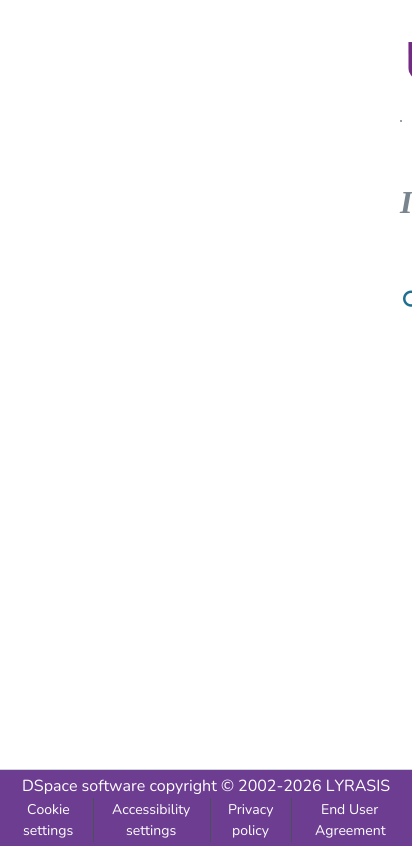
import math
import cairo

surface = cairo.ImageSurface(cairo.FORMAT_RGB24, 412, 846)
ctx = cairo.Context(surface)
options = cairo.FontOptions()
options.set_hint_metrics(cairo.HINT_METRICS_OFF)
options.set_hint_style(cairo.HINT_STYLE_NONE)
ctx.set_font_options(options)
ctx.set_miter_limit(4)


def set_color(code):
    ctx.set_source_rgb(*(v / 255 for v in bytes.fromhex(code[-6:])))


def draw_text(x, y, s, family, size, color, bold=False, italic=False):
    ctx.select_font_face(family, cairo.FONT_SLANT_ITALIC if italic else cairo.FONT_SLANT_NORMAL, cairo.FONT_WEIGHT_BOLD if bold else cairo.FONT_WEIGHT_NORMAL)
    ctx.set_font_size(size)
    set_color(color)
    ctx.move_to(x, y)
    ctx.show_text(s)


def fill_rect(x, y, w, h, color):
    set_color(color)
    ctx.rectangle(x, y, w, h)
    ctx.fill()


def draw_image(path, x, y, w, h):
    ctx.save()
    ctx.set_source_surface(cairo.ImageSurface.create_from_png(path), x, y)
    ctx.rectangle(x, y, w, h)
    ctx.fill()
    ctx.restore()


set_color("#ffffff")
ctx.paint()
draw_image("assets/img1.png", 408, 42, 4, 35)
set_color("#78848e")
ctx.arc(401, 121, 1, 0, 2 * math.pi)
ctx.fill()
draw_text(400, 213, "I", "Liberation Serif", 32, "#78848e", bold=True, italic=True)
draw_image("assets/img2.png", 403, 290, 9, 17)
fill_rect(0, 770, 412, 76, "#6c3d91")
fill_rect(0, 769, 412, 1, "#ced4da")
draw_text(22, 791, "DSpace software copyright © 2002-2026 LYRASIS", "Nunito", 16, "#ffffff")
draw_text(27, 814, "Cookie", "Nunito", 14, "#ffffff")
draw_text(23, 835, "settings", "Nunito", 14, "#ffffff")
fill_rect(93, 798, 1, 44, "#495057")
draw_text(112, 814, "Accessibility", "Nunito", 14, "#ffffff")
draw_text(126, 835, "settings", "Nunito", 14, "#ffffff")
fill_rect(210, 798, 1, 44, "#495057")
draw_text(228, 814, "Privacy", "Nunito", 14, "#ffffff")
draw_text(232, 835, "policy", "Nunito", 14, "#ffffff")
fill_rect(291, 798, 1, 44, "#495057")
draw_text(321, 814, "End User", "Nunito", 14, "#ffffff")
draw_text(315, 835, "Agreement", "Nunito", 14, "#ffffff")
surface.write_to_png("output.png")
